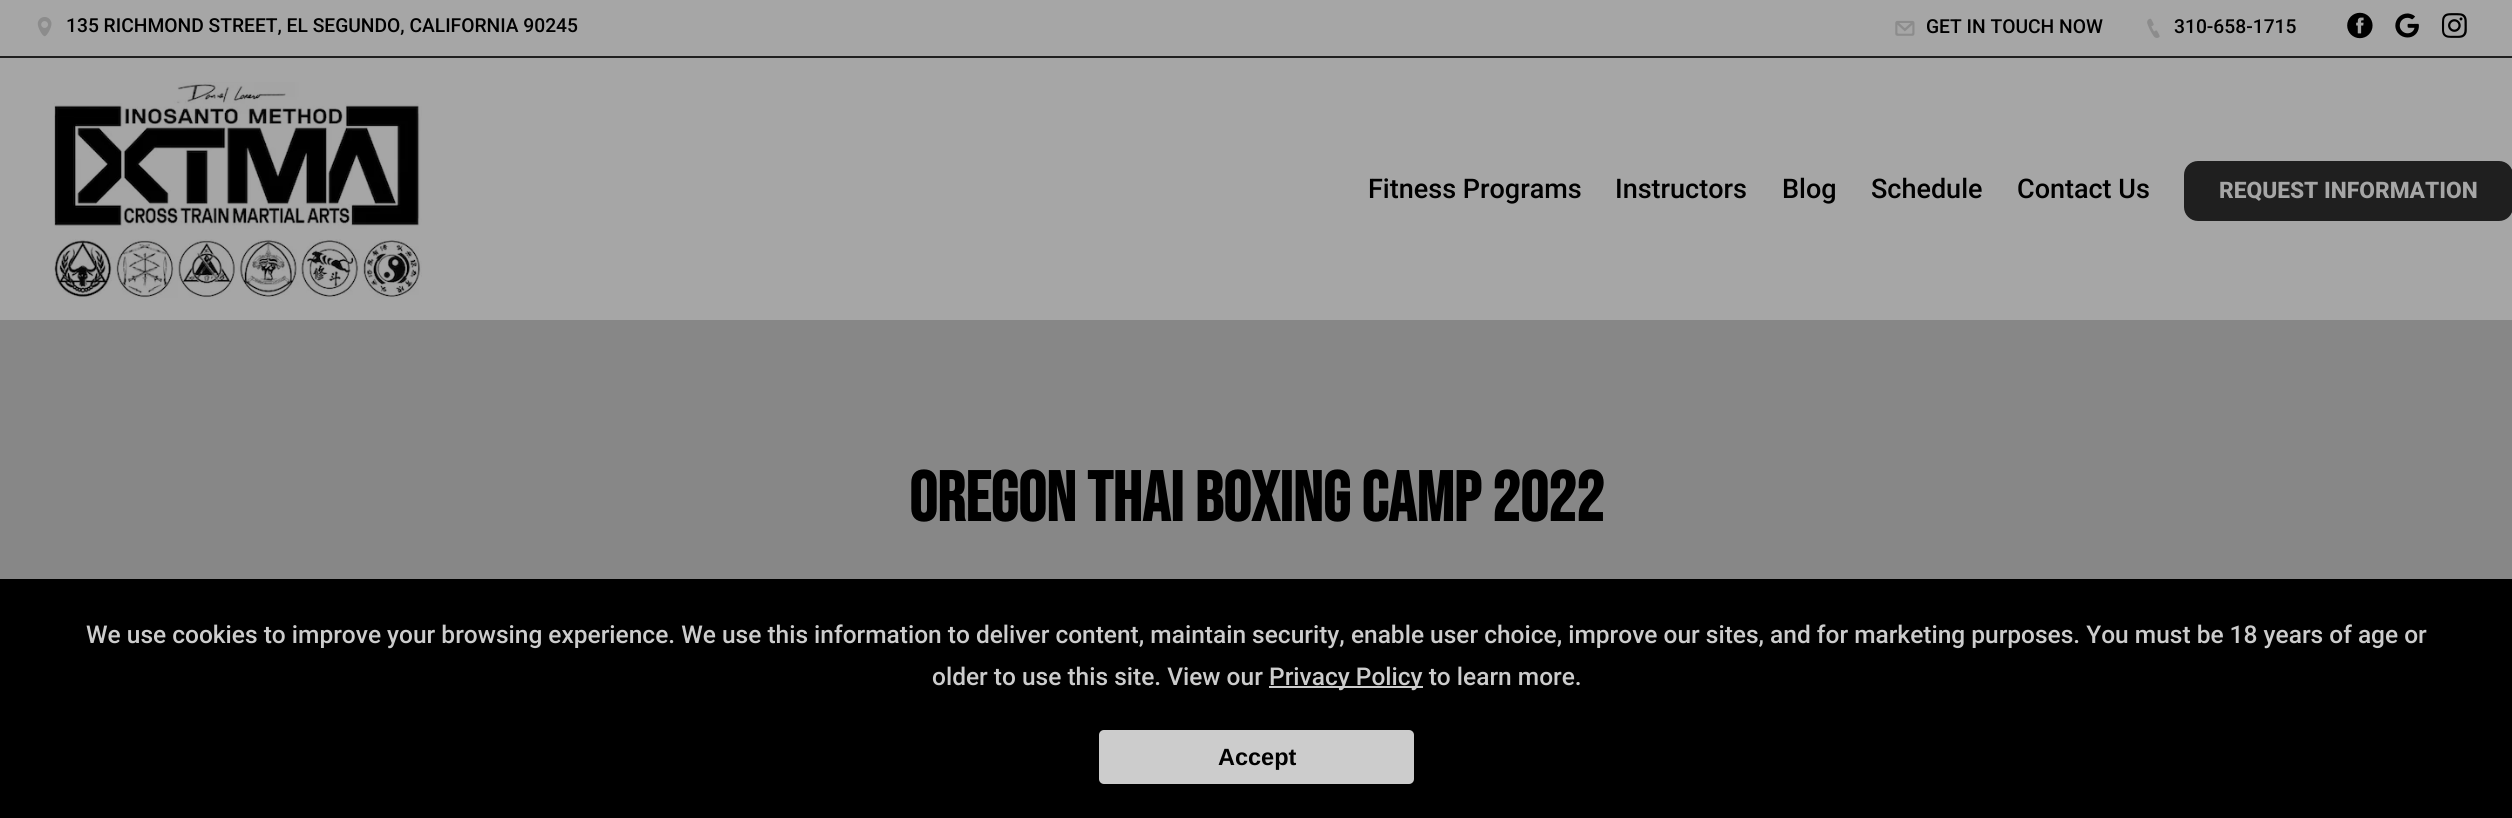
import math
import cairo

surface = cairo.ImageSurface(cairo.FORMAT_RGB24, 2512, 818)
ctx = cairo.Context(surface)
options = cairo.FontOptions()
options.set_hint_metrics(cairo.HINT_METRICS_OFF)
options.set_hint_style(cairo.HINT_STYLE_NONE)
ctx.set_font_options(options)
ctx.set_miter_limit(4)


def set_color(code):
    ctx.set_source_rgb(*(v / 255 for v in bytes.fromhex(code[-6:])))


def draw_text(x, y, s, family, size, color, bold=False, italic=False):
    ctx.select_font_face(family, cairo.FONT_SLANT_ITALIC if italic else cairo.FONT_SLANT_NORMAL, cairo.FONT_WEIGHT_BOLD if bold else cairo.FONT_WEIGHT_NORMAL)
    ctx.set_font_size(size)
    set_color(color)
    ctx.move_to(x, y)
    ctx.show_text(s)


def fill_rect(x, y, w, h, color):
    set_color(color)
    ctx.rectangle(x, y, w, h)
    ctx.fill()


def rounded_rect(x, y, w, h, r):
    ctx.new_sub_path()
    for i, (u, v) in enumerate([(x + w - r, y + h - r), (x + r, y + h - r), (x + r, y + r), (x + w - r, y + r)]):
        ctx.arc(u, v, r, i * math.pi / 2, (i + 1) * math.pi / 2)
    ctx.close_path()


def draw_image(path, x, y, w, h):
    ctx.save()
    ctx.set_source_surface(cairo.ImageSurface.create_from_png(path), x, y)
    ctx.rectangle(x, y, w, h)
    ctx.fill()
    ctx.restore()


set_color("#a6a6a6")
ctx.paint()
fill_rect(0, 56, 2512, 2, "#1f1f1f")
draw_image("assets/img1.png", 37, 17, 15, 20)
draw_text(66, 32, "135 RICHMOND STREET, EL SEGUNDO, CALIFORNIA 90245", "Roboto Medium", 19.25, "#000000")
draw_image("assets/img2.png", 1895, 20, 20, 16)
draw_text(1926, 33, "GET IN TOUCH NOW", "Roboto Medium", 19.25, "#000000")
draw_image("assets/img3.png", 2147, 18, 13, 20)
draw_text(2174, 33, "310-658-1715", "Roboto Medium", 19.25, "#000000")
draw_image("assets/img4.png", 2347, 12, 26, 27)
draw_image("assets/img5.png", 2395, 13, 24, 25)
draw_image("assets/img6.png", 2441, 13, 26, 25)
draw_image("assets/img7.png", 54, 82, 368, 216)
draw_text(1368, 198, "Fitness Programs", "Roboto Medium", 27, "#000000")
draw_text(1615, 198, "Instructors", "Roboto Medium", 27, "#000000")
draw_text(1782, 198, "Blog", "Roboto Medium", 27, "#000000")
draw_text(1871, 198, "Schedule", "Roboto Medium", 27, "#000000")
draw_text(2017, 198, "Contact Us", "Roboto Medium", 27, "#000000")
set_color("#1f1f1f")
rounded_rect(2184, 161, 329, 60, 14)
ctx.fill()
draw_text(2219, 198, "REQUEST INFORMATION", "Roboto ExtraBold", 22.75, "#a6a6a6")
fill_rect(0, 320, 2512, 259, "#878787")
draw_text(909, 521, "Oregon Thai Boxing Camp 2022", "Bebas Neue", 70, "#000000", bold=True)
fill_rect(0, 579, 2512, 239, "#000000")
draw_text(86, 643, "We use cookies to improve your browsing experience. We use this information to deliver content, maintain security, enable user choice, improve our sites, and for marketing purposes. You must be 18 years of age or", "Roboto Medium", 24.5, "#cccccc")
draw_text(932, 685, "older to use this site. View our", "Roboto Medium", 24.5, "#cccccc")
fill_rect(1269, 686, 154, 2, "#cccccc")
draw_text(1269, 685, "Privacy Policy to learn more.", "Roboto Medium", 24.5, "#cccccc")
rounded_rect(1099, 730, 315, 54, 5)
ctx.fill()
draw_text(1218, 765, "Accept", "Liberation Sans", 23.5, "#000000", bold=True)
surface.write_to_png("output.png")
